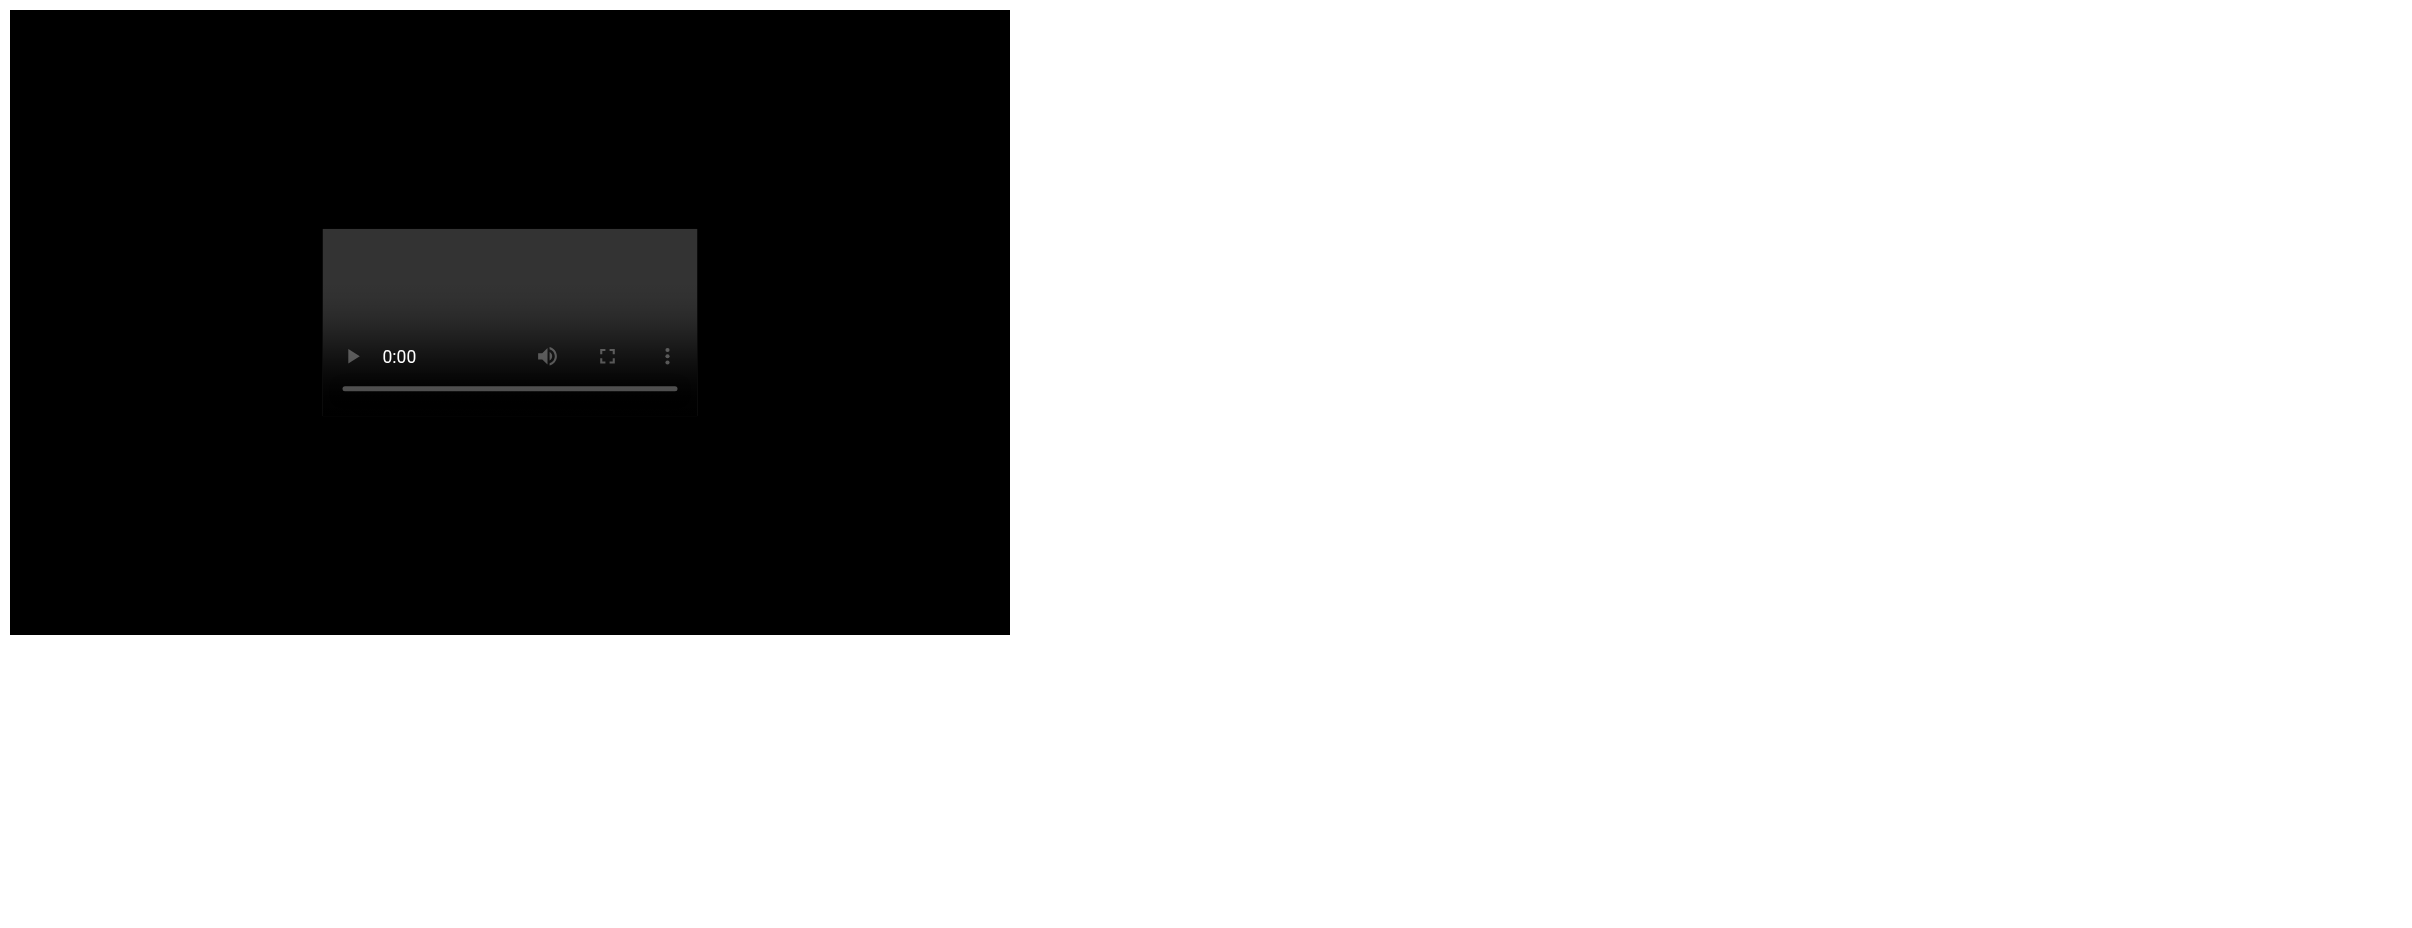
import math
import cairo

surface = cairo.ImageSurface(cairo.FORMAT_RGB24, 2412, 928)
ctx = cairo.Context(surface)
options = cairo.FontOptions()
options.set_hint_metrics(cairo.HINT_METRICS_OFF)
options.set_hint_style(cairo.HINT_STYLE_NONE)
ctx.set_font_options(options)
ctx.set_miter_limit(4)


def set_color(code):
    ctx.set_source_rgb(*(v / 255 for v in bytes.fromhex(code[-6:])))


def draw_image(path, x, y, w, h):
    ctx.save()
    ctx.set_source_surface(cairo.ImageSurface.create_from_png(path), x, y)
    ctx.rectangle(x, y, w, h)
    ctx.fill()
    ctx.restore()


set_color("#ffffff")
ctx.paint()
draw_image("assets/img1.png", 10, 10, 1000, 625)
surface.write_to_png("output.png")
